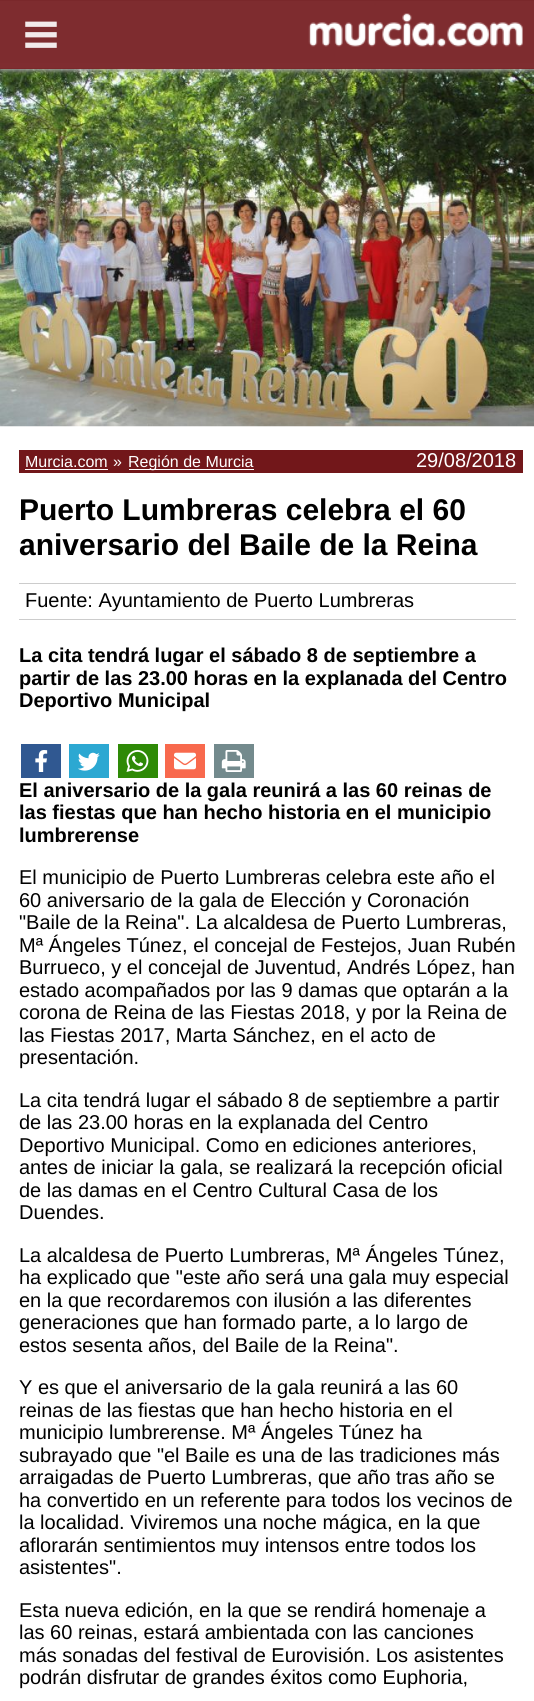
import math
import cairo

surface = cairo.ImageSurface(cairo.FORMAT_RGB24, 534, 1701)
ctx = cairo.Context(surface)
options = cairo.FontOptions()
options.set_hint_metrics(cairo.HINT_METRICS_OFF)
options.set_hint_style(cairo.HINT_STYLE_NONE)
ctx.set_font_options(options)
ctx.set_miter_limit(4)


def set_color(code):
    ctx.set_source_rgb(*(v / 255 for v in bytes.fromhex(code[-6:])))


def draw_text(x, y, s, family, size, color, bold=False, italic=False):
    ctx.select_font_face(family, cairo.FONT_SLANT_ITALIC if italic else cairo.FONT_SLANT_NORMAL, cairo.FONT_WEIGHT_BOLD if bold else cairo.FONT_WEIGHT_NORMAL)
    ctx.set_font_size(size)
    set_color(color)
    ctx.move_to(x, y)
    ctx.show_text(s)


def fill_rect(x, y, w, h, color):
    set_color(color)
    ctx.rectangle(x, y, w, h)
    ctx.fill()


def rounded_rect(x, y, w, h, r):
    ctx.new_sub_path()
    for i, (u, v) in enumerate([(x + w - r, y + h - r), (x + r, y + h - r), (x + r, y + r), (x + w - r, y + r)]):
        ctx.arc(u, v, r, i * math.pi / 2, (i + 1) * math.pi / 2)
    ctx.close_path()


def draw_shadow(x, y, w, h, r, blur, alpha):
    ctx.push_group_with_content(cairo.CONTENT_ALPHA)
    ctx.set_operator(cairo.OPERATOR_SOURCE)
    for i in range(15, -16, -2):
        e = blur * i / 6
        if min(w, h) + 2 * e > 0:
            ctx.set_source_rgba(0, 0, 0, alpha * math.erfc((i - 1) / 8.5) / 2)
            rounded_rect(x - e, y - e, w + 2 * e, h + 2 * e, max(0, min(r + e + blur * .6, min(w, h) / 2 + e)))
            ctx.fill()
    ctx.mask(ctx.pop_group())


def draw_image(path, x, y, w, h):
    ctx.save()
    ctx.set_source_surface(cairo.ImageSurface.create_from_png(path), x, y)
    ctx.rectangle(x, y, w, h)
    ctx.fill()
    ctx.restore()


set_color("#f9f9f9")
ctx.paint()
fill_rect(0, 0, 534, 1, "#cccccc")
fill_rect(0, 63, 534, 1638, "#ffffff")
draw_image("assets/img3.png", 0, 68, 534, 359)
ctx.save()
ctx.set_fill_rule(cairo.FILL_RULE_EVEN_ODD)
ctx.new_path()
ctx.move_to(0, 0)
ctx.line_to(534, 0)
ctx.line_to(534, 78)
ctx.line_to(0, 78)
ctx.close_path()
ctx.move_to(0, 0)
ctx.line_to(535, 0)
ctx.line_to(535, 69)
ctx.line_to(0, 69)
ctx.close_path()
ctx.clip()
set_color("#aaaaaa")
draw_shadow(0, 3, 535, 68, 0, 2, 0.9)
ctx.restore()
ctx.set_source_rgba(0.447, 0.09, 0.102, 0.9)
ctx.rectangle(0, 0, 534, 69)
ctx.fill()
draw_image("assets/img1.png", 308, 13, 215, 34)
draw_image("assets/img2.png", 25, 21, 32, 27)
fill_rect(19, 450, 504, 23, "#72171a")
draw_text(25, 467, "Murcia.com", "Liberation Sans", 16, "#ffffff")
fill_rect(25, 469, 83, 1, "#ffffff")
draw_text(113, 467, "»", "Liberation Sans", 16, "#ffffff")
fill_rect(129, 469, 125, 1, "#ffffff")
draw_text(128, 467, "Región de Murcia", "Liberation Sans", 16, "#ffffff")
draw_text(416, 467, "29/08/2018", "Liberation Sans", 20, "#ffffff")
draw_text(19, 520, "Puerto Lumbreras celebra el 60", "Liberation Sans", 30, "#000000", bold=True)
draw_text(19, 555, "aniversario del Baile de la Reina", "Liberation Sans", 30, "#000000", bold=True)
fill_rect(19, 583, 497, 1, "#cccccc")
fill_rect(19, 619, 497, 1, "#cccccc")
draw_text(25, 607, "Fuente: Ayuntamiento de Puerto Lumbreras", "Liberation Sans", 20, "#000000")
draw_text(19, 662, "La cita tendrá lugar el sábado 8 de septiembre a", "Liberation Sans", 20, "#000000", bold=True)
draw_text(19, 685, "partir de las 23.00 horas en la explanada del Centro", "Liberation Sans", 20, "#000000", bold=True)
draw_text(19, 707, "Deportivo Municipal", "Liberation Sans", 20, "#000000", bold=True)
fill_rect(21, 744, 40, 34, "#305891")
draw_image("assets/img4.png", 35, 750, 13, 22)
fill_rect(69, 744, 40, 34, "#2ca8d2")
draw_image("assets/img5.png", 78, 752, 22, 19)
fill_rect(118, 744, 40, 34, "#2e8a06")
draw_image("assets/img6.png", 126, 750, 23, 22)
fill_rect(165, 744, 40, 34, "#f8694d")
draw_image("assets/img7.png", 174, 752, 22, 18)
fill_rect(214, 744, 40, 34, "#738a8d")
draw_image("assets/img8.png", 221, 750, 25, 22)
draw_text(19, 797, "El aniversario de la gala reunirá a las 60 reinas de", "Liberation Sans", 20, "#000000", bold=True)
draw_text(19, 819, "las fiestas que han hecho historia en el municipio", "Liberation Sans", 20, "#000000", bold=True)
draw_text(19, 842, "lumbrerense", "Liberation Sans", 20, "#000000", bold=True)
draw_text(19, 884, "El municipio de Puerto Lumbreras celebra este año el", "Liberation Sans", 20, "#000000")
draw_text(19, 907, "60 aniversario de la gala de Elección y Coronación", "Liberation Sans", 20, "#000000")
draw_text(19, 929, "\"Baile de la Reina\". La alcaldesa de Puerto Lumbreras,", "Liberation Sans", 20, "#000000")
draw_text(19, 952, "Mª Ángeles Túnez, el concejal de Festejos, Juan Rubén", "Liberation Sans", 20, "#000000")
draw_text(19, 974, "Burrueco, y el concejal de Juventud, Andrés López, han", "Liberation Sans", 20, "#000000")
draw_text(19, 997, "estado acompañados por las 9 damas que optarán a la", "Liberation Sans", 20, "#000000")
draw_text(19, 1019, "corona de Reina de las Fiestas 2018, y por la Reina de", "Liberation Sans", 20, "#000000")
draw_text(19, 1042, "las Fiestas 2017, Marta Sánchez, en el acto de", "Liberation Sans", 20, "#000000")
draw_text(19, 1064, "presentación.", "Liberation Sans", 20, "#000000")
draw_text(19, 1107, "La cita tendrá lugar el sábado 8 de septiembre a partir", "Liberation Sans", 20, "#000000")
draw_text(19, 1129, "de las 23.00 horas en la explanada del Centro", "Liberation Sans", 20, "#000000")
draw_text(19, 1152, "Deportivo Municipal. Como en ediciones anteriores,", "Liberation Sans", 20, "#000000")
draw_text(19, 1174, "antes de iniciar la gala, se realizará la recepción oficial", "Liberation Sans", 20, "#000000")
draw_text(19, 1197, "de las damas en el Centro Cultural Casa de los", "Liberation Sans", 20, "#000000")
draw_text(19, 1219, "Duendes.", "Liberation Sans", 20, "#000000")
draw_text(19, 1262, "La alcaldesa de Puerto Lumbreras, Mª Ángeles Túnez,", "Liberation Sans", 20, "#000000")
draw_text(19, 1284, "ha explicado que \"este año será una gala muy especial", "Liberation Sans", 20, "#000000")
draw_text(19, 1307, "en la que recordaremos con ilusión a las diferentes", "Liberation Sans", 20, "#000000")
draw_text(19, 1329, "generaciones que han formado parte, a lo largo de", "Liberation Sans", 20, "#000000")
draw_text(19, 1352, "estos sesenta años, del Baile de la Reina\".", "Liberation Sans", 20, "#000000")
draw_text(19, 1394, "Y es que el aniversario de la gala reunirá a las 60", "Liberation Sans", 20, "#000000")
draw_text(19, 1417, "reinas de las fiestas que han hecho historia en el", "Liberation Sans", 20, "#000000")
draw_text(19, 1439, "municipio lumbrerense. Mª Ángeles Túnez ha", "Liberation Sans", 20, "#000000")
draw_text(19, 1462, "subrayado que \"el Baile es una de las tradiciones más", "Liberation Sans", 20, "#000000")
draw_text(19, 1484, "arraigadas de Puerto Lumbreras, que año tras año se", "Liberation Sans", 20, "#000000")
draw_text(19, 1507, "ha convertido en un referente para todos los vecinos de", "Liberation Sans", 20, "#000000")
draw_text(19, 1529, "la localidad. Viviremos una noche mágica, en la que", "Liberation Sans", 20, "#000000")
draw_text(19, 1552, "aflorarán sentimientos muy intensos entre todos los", "Liberation Sans", 20, "#000000")
draw_text(19, 1574, "asistentes\".", "Liberation Sans", 20, "#000000")
draw_text(19, 1617, "Esta nueva edición, en la que se rendirá homenaje a", "Liberation Sans", 20, "#000000")
draw_text(19, 1639, "las 60 reinas, estará ambientada con las canciones", "Liberation Sans", 20, "#000000")
draw_text(19, 1662, "más sonadas del festival de Eurovisión. Los asistentes", "Liberation Sans", 20, "#000000")
draw_text(19, 1684, "podrán disfrutar de grandes éxitos como Euphoria,", "Liberation Sans", 20, "#000000")
surface.write_to_png("output.png")
